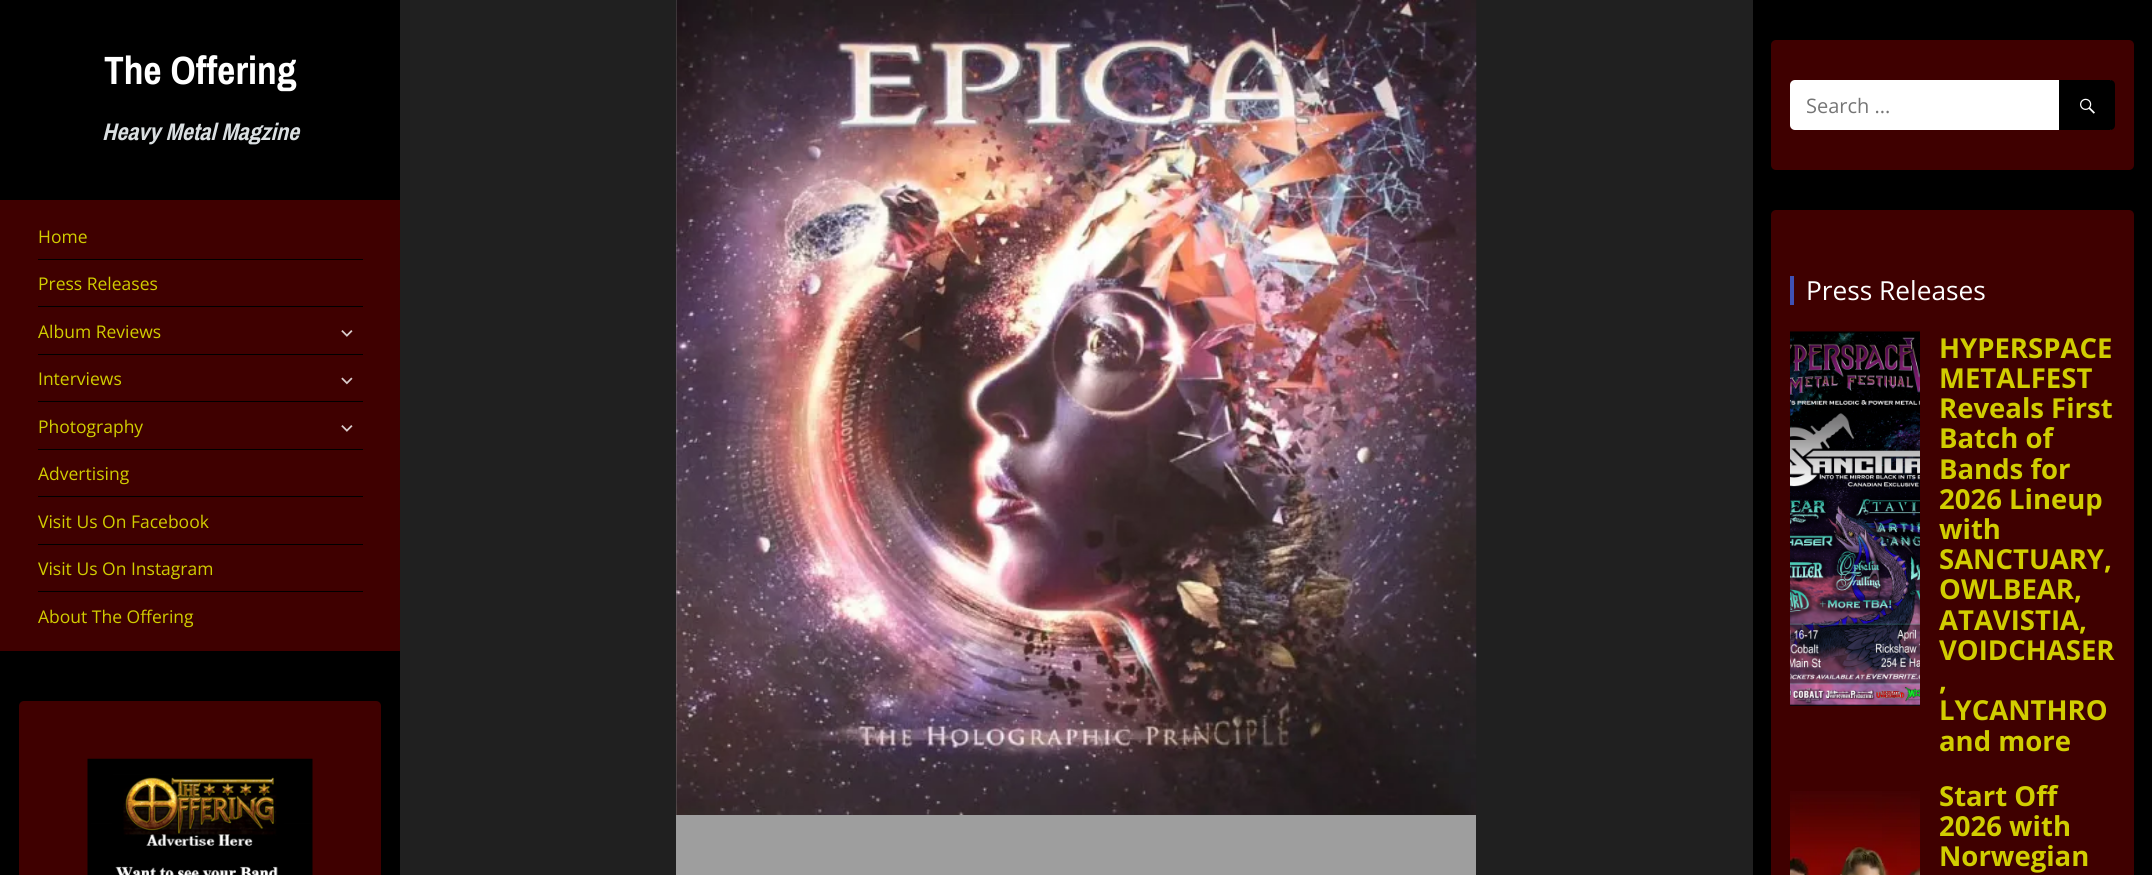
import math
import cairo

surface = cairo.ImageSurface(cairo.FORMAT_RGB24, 2152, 875)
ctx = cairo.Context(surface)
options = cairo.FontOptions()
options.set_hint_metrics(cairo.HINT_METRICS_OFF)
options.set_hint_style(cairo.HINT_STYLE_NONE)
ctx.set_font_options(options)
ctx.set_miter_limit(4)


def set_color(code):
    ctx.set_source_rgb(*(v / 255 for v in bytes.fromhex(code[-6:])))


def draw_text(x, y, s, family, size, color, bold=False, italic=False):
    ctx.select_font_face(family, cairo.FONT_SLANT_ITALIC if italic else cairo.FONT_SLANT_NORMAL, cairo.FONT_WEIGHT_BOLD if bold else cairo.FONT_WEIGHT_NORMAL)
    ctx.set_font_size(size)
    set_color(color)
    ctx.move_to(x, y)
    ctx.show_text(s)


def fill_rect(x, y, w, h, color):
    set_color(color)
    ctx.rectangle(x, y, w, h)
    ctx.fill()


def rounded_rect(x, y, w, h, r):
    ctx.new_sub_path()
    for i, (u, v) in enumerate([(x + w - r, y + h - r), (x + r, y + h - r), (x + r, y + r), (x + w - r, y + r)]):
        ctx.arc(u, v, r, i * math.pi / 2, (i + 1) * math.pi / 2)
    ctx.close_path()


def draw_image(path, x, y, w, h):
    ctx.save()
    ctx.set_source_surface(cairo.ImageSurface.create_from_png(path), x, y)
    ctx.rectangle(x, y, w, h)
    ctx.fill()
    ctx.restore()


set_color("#202020")
ctx.paint()
fill_rect(0, 0, 400, 875, "#000000")
draw_text(104, 84, "The Offering", "Archivo Narrow", 39.5, "#ffffff", bold=True)
draw_text(102, 140, "Heavy Metal Magzine", "Archivo Narrow", 24, "#dadfe1", bold=True, italic=True)
fill_rect(0, 200, 400, 451, "#3f0000")
draw_text(38, 243, "Home", "Open Sans", 17.5, "#d1cd00")
fill_rect(38, 259, 325, 1, "#000000")
draw_text(38, 290, "Press Releases", "Open Sans", 17.5, "#d1cd00")
fill_rect(38, 306, 325, 1, "#000000")
draw_text(38, 338, "Album Reviews", "Open Sans", 17.5, "#d1cd00")
draw_image("assets/img1.png", 341, 330, 12, 7)
fill_rect(38, 354, 325, 1, "#000000")
draw_text(38, 385, "Interviews", "Open Sans", 17.5, "#d1cd00")
draw_image("assets/img2.png", 341, 377, 12, 8)
fill_rect(38, 401, 325, 1, "#000000")
draw_text(38, 433, "Photography", "Open Sans", 17.5, "#d1cd00")
draw_image("assets/img1.png", 341, 425, 12, 7)
fill_rect(38, 449, 325, 1, "#000000")
draw_text(38, 480, "Advertising", "Open Sans", 17.5, "#d1cd00")
fill_rect(38, 496, 325, 1, "#000000")
draw_text(38, 528, "Visit Us On Facebook", "Open Sans", 17.5, "#d1cd00")
fill_rect(38, 544, 325, 1, "#000000")
draw_text(38, 575, "Visit Us On Instagram", "Open Sans", 17.5, "#d1cd00")
fill_rect(38, 591, 325, 1, "#000000")
draw_text(38, 623, "About The Offering", "Open Sans", 17.5, "#d1cd00")
set_color("#3f0000")
rounded_rect(19, 701, 362, 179, 5)
ctx.fill()
draw_image("assets/img3.png", 87, 758, 226, 117)
fill_rect(676, 0, 800, 875, "#9e9e9e")
draw_image("assets/img4.png", 676, 0, 801, 815)
fill_rect(1753, 0, 399, 875, "#000000")
set_color("#3f0000")
rounded_rect(1771, 40, 363, 130, 5)
ctx.fill()
ctx.save()
rounded_rect(1790, 80, 325, 50, 5)
ctx.clip()
set_color("#ffffff")
ctx.new_path()
ctx.move_to(1795, 80)
ctx.line_to(2111, 80)
ctx.line_to(2111, 130)
ctx.line_to(1795, 130)
ctx.curve_to(1792, 130, 1790, 128, 1790, 125)
ctx.line_to(1790, 85)
ctx.curve_to(1790, 82, 1792, 80, 1795, 80)
ctx.close_path()
ctx.fill()
ctx.restore()
draw_text(1806, 113, "Search ...", "Open Sans", 20, "#757575")
set_color("#000000")
ctx.new_path()
ctx.move_to(2059, 80)
ctx.line_to(2110, 80)
ctx.curve_to(2113, 80, 2115, 82, 2115, 85)
ctx.line_to(2115, 125)
ctx.curve_to(2115, 128, 2113, 130, 2110, 130)
ctx.line_to(2059, 130)
ctx.close_path()
ctx.fill()
draw_image("assets/img5.png", 2080, 98, 15, 16)
set_color("#3f0000")
rounded_rect(1771, 210, 363, 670, 5)
ctx.fill()
fill_rect(1790, 276, 4, 29, "#3f51b5")
draw_text(1806, 300, "Press Releases", "Open Sans", 26.25, "#ffffff")
draw_image("assets/img6.png", 1790, 331, 130, 375)
draw_text(1939, 358, "HYPERSPACE", "Open Sans", 27.5, "#d1cd00", bold=True)
draw_text(1939, 388, "METALFEST", "Open Sans", 27.5, "#d1cd00", bold=True)
draw_text(1939, 418, "Reveals First", "Open Sans", 27.5, "#d1cd00", bold=True)
draw_text(1939, 448, "Batch of", "Open Sans", 27.5, "#d1cd00", bold=True)
draw_text(1939, 479, "Bands for", "Open Sans", 27.5, "#d1cd00", bold=True)
draw_text(1939, 509, "2026 Lineup", "Open Sans", 27.5, "#d1cd00", bold=True)
draw_text(1939, 539, "with", "Open Sans", 27.5, "#d1cd00", bold=True)
draw_text(1939, 569, "SANCTUARY,", "Open Sans", 27.5, "#d1cd00", bold=True)
draw_text(1939, 599, "OWLBEAR,", "Open Sans", 27.5, "#d1cd00", bold=True)
draw_text(1939, 630, "ATAVISTIA,", "Open Sans", 27.5, "#d1cd00", bold=True)
draw_text(1939, 660, "VOIDCHASER", "Open Sans", 27.5, "#d1cd00", bold=True)
draw_text(1939, 690, ",", "Open Sans", 27.5, "#d1cd00", bold=True)
draw_text(1939, 720, "LYCANTHRO", "Open Sans", 27.5, "#d1cd00", bold=True)
draw_text(1939, 751, "and more", "Open Sans", 27.5, "#d1cd00", bold=True)
draw_image("assets/img7.png", 1790, 791, 130, 84)
draw_text(1939, 806, "Start Off", "Open Sans", 27.5, "#d1cd00", bold=True)
draw_text(1939, 836, "2026 with", "Open Sans", 27.5, "#d1cd00", bold=True)
draw_text(1939, 866, "Norwegian", "Open Sans", 27.5, "#d1cd00", bold=True)
surface.write_to_png("output.png")
